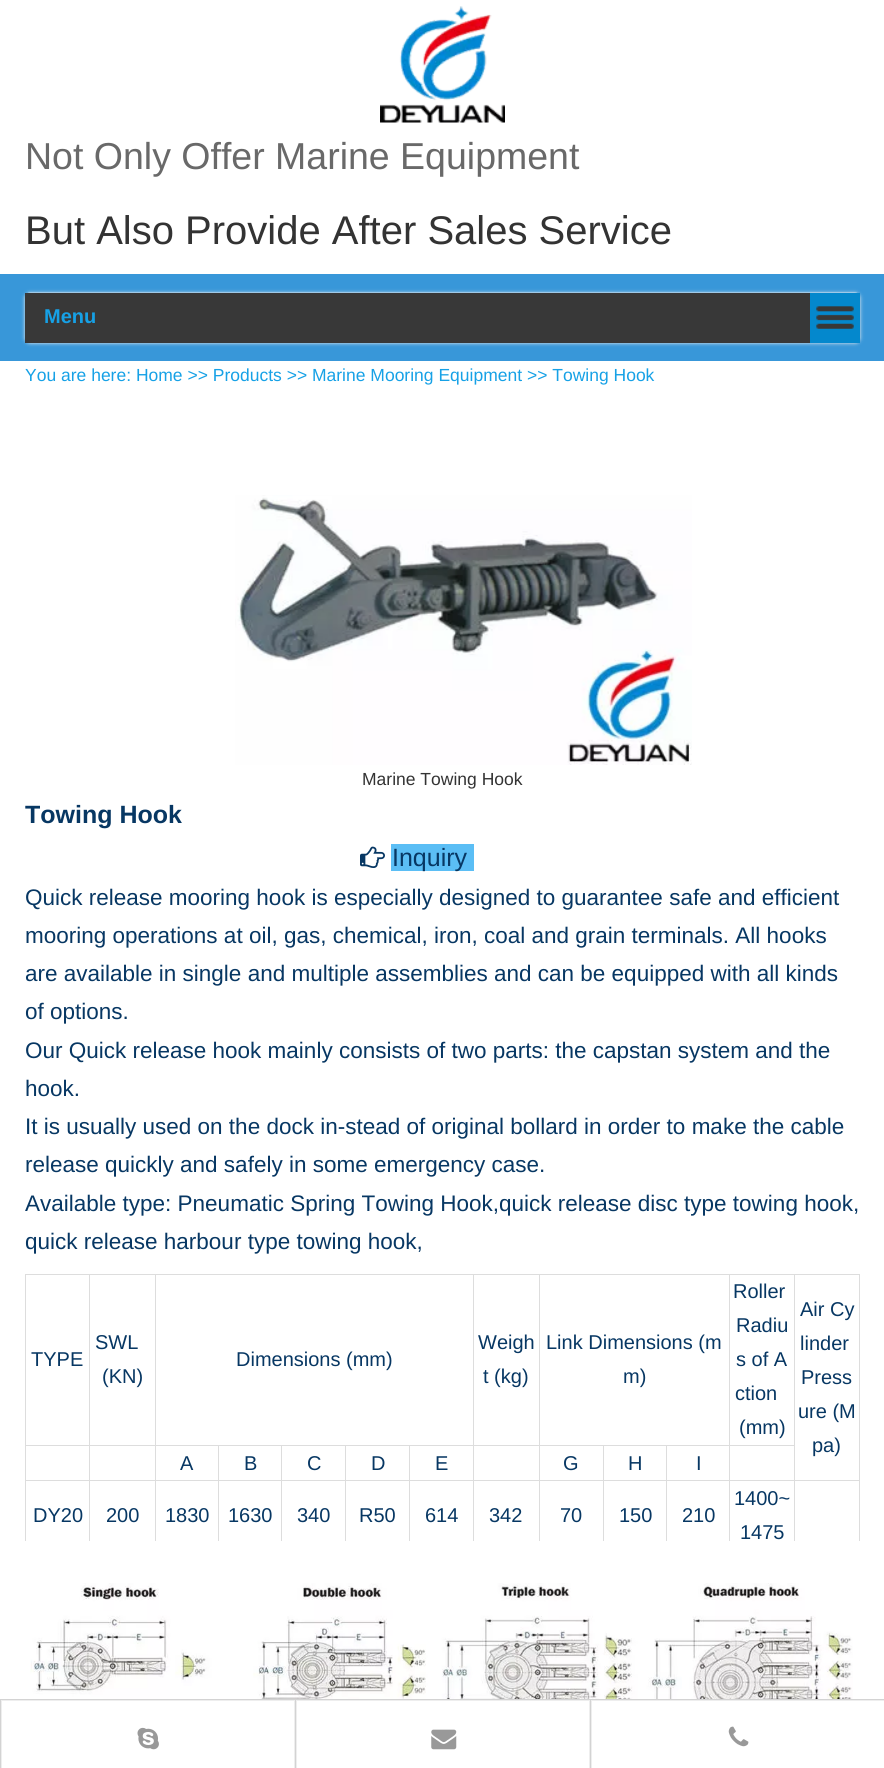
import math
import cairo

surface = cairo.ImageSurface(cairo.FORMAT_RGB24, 884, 1768)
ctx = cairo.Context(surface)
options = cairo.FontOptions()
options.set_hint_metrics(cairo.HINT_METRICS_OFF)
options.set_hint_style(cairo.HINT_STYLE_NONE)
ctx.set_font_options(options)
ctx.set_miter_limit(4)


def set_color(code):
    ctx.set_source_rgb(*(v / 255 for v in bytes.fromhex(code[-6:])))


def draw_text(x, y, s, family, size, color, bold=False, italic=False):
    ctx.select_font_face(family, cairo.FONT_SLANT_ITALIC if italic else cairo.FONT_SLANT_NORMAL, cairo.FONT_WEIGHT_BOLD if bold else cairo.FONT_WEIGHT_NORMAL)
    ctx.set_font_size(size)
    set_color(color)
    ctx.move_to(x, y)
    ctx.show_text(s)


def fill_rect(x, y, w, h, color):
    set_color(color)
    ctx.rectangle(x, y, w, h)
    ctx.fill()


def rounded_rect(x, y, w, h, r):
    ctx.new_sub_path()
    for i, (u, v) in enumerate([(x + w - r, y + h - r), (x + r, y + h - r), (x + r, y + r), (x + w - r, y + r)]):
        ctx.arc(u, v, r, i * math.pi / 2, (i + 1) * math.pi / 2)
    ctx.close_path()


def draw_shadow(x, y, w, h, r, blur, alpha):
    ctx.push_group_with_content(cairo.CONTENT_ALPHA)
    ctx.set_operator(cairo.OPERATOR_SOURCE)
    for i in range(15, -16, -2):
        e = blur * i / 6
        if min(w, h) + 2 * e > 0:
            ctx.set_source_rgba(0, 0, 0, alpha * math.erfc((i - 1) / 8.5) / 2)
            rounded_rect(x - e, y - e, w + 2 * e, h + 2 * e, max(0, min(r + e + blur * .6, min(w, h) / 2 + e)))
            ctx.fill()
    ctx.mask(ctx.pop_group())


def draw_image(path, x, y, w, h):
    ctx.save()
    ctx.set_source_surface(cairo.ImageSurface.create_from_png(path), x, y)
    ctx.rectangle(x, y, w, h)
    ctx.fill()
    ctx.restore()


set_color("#ffffff")
ctx.paint()
draw_image("assets/img1.png", 380, 6, 125, 117)
draw_text(25, 169, "Not Only Offer Marine Equipment", "Liberation Sans", 37.5, "#696969")
draw_text(25, 244, "But Also Provide After Sales Service", "Liberation Sans", 40, "#333333")
fill_rect(0, 274, 884, 87, "#3897d9")
set_color("#ebebeb")
draw_shadow(25, 293, 835, 50, 5, 2, 1)
draw_image("assets/img2.png", 28, 292, 829, 1)
fill_rect(25, 293, 785, 50, "#383838")
draw_text(44, 323, "Menu", "Liberation Sans", 20, "#16a1e6", bold=True)
fill_rect(810, 293, 50, 50, "#0488cd")
draw_image("assets/img3.png", 816, 306, 38, 23)
draw_text(25, 381, "You are here: Home >> Products >> Marine Mooring Equipment >> Towing Hook", "Liberation Sans", 17.5, "#16a1e6")
draw_image("assets/img4.png", 235, 495, 457, 270)
draw_text(362, 785, "Marine Towing Hook", "Liberation Sans", 17.5, "#333333")
draw_text(25, 823, "Towing Hook", "Liberation Sans", 25, "#073763", bold=True)
draw_image("assets/img5.png", 360, 846, 25, 22)
fill_rect(391, 844, 83, 27, "#5bbef5")
draw_text(392, 866, "Inquiry", "Liberation Sans", 25, "#073763")
draw_text(25, 905, "Quick release mooring hook is especially designed to guarantee safe and efficient", "Liberation Sans", 22.5, "#073763")
draw_text(25, 943, "mooring operations at oil, gas, chemical, iron, coal and grain terminals. All hooks", "Liberation Sans", 22.5, "#073763")
draw_text(25, 981, "are available in single and multiple assemblies and can be equipped with all kinds", "Liberation Sans", 22.5, "#073763")
draw_text(25, 1019, "of options.", "Liberation Sans", 22.5, "#073763")
draw_text(25, 1058, "Our Quick release hook mainly consists of two parts: the capstan system and the", "Liberation Sans", 22.5, "#073763")
draw_text(25, 1096, "hook.", "Liberation Sans", 22.5, "#073763")
draw_text(25, 1134, "It is usually used on the dock in-stead of original bollard in order to make the cable", "Liberation Sans", 22.5, "#073763")
draw_text(25, 1172, "release quickly and safely in some emergency case.", "Liberation Sans", 22.5, "#073763")
draw_text(25, 1211, "Available type: Pneumatic Spring Towing Hook,quick release disc type towing hook,", "Liberation Sans", 22.5, "#073763")
draw_text(25, 1249, "quick release harbour type towing hook,", "Liberation Sans", 22.5, "#073763")
fill_rect(794, 1274, 66, 1, "#dddddd")
fill_rect(729, 1445, 66, 1, "#dddddd")
fill_rect(794, 1480, 66, 1, "#dddddd")
fill_rect(794, 1480, 1, 61, "#dddddd")
fill_rect(729, 1480, 66, 1, "#dddddd")
fill_rect(794, 1274, 1, 207, "#dddddd")
fill_rect(729, 1274, 66, 1, "#dddddd")
fill_rect(729, 1480, 1, 61, "#dddddd")
fill_rect(666, 1480, 64, 1, "#dddddd")
fill_rect(729, 1445, 1, 36, "#dddddd")
fill_rect(666, 1445, 64, 1, "#dddddd")
fill_rect(729, 1274, 1, 172, "#dddddd")
fill_rect(539, 1274, 191, 1, "#dddddd")
fill_rect(666, 1480, 1, 61, "#dddddd")
fill_rect(603, 1480, 65, 1, "#dddddd")
fill_rect(666, 1445, 1, 36, "#dddddd")
fill_rect(603, 1445, 65, 1, "#dddddd")
fill_rect(603, 1480, 1, 61, "#dddddd")
fill_rect(539, 1480, 65, 1, "#dddddd")
fill_rect(603, 1445, 1, 36, "#dddddd")
fill_rect(539, 1445, 65, 1, "#dddddd")
fill_rect(539, 1480, 1, 61, "#dddddd")
fill_rect(473, 1480, 67, 1, "#dddddd")
fill_rect(539, 1445, 1, 36, "#dddddd")
fill_rect(473, 1445, 67, 1, "#dddddd")
fill_rect(539, 1274, 1, 172, "#dddddd")
fill_rect(473, 1274, 67, 1, "#dddddd")
fill_rect(473, 1480, 1, 61, "#dddddd")
fill_rect(409, 1480, 65, 1, "#dddddd")
fill_rect(473, 1445, 1, 36, "#dddddd")
fill_rect(409, 1445, 65, 1, "#dddddd")
fill_rect(473, 1274, 1, 172, "#dddddd")
fill_rect(155, 1274, 319, 1, "#dddddd")
fill_rect(409, 1480, 1, 61, "#dddddd")
fill_rect(345, 1480, 65, 1, "#dddddd")
fill_rect(409, 1445, 1, 36, "#dddddd")
fill_rect(345, 1445, 65, 1, "#dddddd")
fill_rect(345, 1480, 1, 61, "#dddddd")
fill_rect(281, 1480, 65, 1, "#dddddd")
fill_rect(345, 1445, 1, 36, "#dddddd")
fill_rect(281, 1445, 65, 1, "#dddddd")
fill_rect(281, 1480, 1, 61, "#dddddd")
fill_rect(218, 1480, 65, 1, "#dddddd")
fill_rect(281, 1445, 1, 36, "#dddddd")
fill_rect(218, 1445, 65, 1, "#dddddd")
fill_rect(218, 1480, 1, 61, "#dddddd")
fill_rect(155, 1480, 64, 1, "#dddddd")
fill_rect(218, 1445, 1, 36, "#dddddd")
fill_rect(155, 1445, 64, 1, "#dddddd")
fill_rect(155, 1480, 1, 61, "#dddddd")
fill_rect(89, 1480, 67, 1, "#dddddd")
fill_rect(155, 1445, 1, 36, "#dddddd")
fill_rect(89, 1445, 67, 1, "#dddddd")
fill_rect(155, 1274, 1, 172, "#dddddd")
fill_rect(89, 1274, 67, 1, "#dddddd")
fill_rect(89, 1480, 1, 61, "#dddddd")
fill_rect(25, 1480, 65, 1, "#dddddd")
fill_rect(89, 1445, 1, 36, "#dddddd")
fill_rect(25, 1445, 65, 1, "#dddddd")
fill_rect(89, 1274, 1, 172, "#dddddd")
fill_rect(25, 1274, 65, 1, "#dddddd")
fill_rect(25, 1480, 1, 61, "#dddddd")
fill_rect(25, 1445, 1, 36, "#dddddd")
fill_rect(25, 1274, 1, 172, "#dddddd")
draw_text(31, 1366, "TYPE", "Liberation Sans", 20, "#073763")
draw_text(95, 1349, "SWL", "Liberation Sans", 20, "#073763")
draw_text(102, 1383, "(KN)", "Liberation Sans", 20, "#073763")
draw_text(236, 1366, "Dimensions (mm)", "Liberation Sans", 20, "#073763")
draw_text(478, 1349, "Weigh", "Liberation Sans", 20, "#073763")
draw_text(483, 1383, "t (kg)", "Liberation Sans", 20, "#073763")
draw_text(546, 1349, "Link Dimensions (m", "Liberation Sans", 20, "#073763")
draw_text(623, 1383, "m)", "Liberation Sans", 20, "#073763")
draw_text(733, 1298, "Roller", "Liberation Sans", 20, "#073763")
draw_text(736, 1332, "Radiu", "Liberation Sans", 20, "#073763")
draw_text(736, 1366, "s of A", "Liberation Sans", 20, "#073763")
draw_text(735, 1400, "ction", "Liberation Sans", 20, "#073763")
draw_text(739, 1434, "(mm)", "Liberation Sans", 20, "#073763")
fill_rect(859, 1480, 1, 61, "#dddddd")
fill_rect(859, 1274, 1, 207, "#dddddd")
draw_text(800, 1316, "Air Cy", "Liberation Sans", 20, "#073763")
draw_text(800, 1350, "linder", "Liberation Sans", 20, "#073763")
draw_text(801, 1384, "Press", "Liberation Sans", 20, "#073763")
draw_text(798, 1418, "ure (M", "Liberation Sans", 20, "#073763")
draw_text(812, 1452, "pa)", "Liberation Sans", 20, "#073763")
draw_text(180, 1470, "A", "Liberation Sans", 20, "#073763")
draw_text(244, 1470, "B", "Liberation Sans", 20, "#073763")
draw_text(307, 1470, "C", "Liberation Sans", 20, "#073763")
draw_text(371, 1470, "D", "Liberation Sans", 20, "#073763")
draw_text(435, 1470, "E", "Liberation Sans", 20, "#073763")
draw_text(563, 1470, "G", "Liberation Sans", 20, "#073763")
draw_text(628, 1470, "H", "Liberation Sans", 20, "#073763")
draw_text(696, 1470, "I", "Liberation Sans", 20, "#073763")
draw_text(33, 1522, "DY20", "Liberation Sans", 20, "#073763")
draw_text(106, 1522, "200", "Liberation Sans", 20, "#073763")
draw_text(165, 1522, "1830", "Liberation Sans", 20, "#073763")
draw_text(228, 1522, "1630", "Liberation Sans", 20, "#073763")
draw_text(297, 1522, "340", "Liberation Sans", 20, "#073763")
draw_text(359, 1522, "R50", "Liberation Sans", 20, "#073763")
draw_text(425, 1522, "614", "Liberation Sans", 20, "#073763")
draw_text(489, 1522, "342", "Liberation Sans", 20, "#073763")
draw_text(560, 1522, "70", "Liberation Sans", 20, "#073763")
draw_text(619, 1522, "150", "Liberation Sans", 20, "#073763")
draw_text(682, 1522, "210", "Liberation Sans", 20, "#073763")
draw_text(734, 1505, "1400~", "Liberation Sans", 20, "#073763")
draw_text(740, 1539, "1475", "Liberation Sans", 20, "#073763")
draw_image("assets/img6.png", 30, 1583, 823, 116)
fill_rect(0, 1699, 884, 1, "#d3d3d3")
fill_rect(0, 1700, 1, 68, "#d3d3d3")
fill_rect(1, 1700, 294, 1, "#eeeeee")
fill_rect(294, 1700, 1, 68, "#eeeeee")
fill_rect(1, 1700, 1, 68, "#eeeeee")
draw_image("assets/img7.png", 137, 1727, 22, 23)
fill_rect(295, 1700, 1, 68, "#d3d3d3")
fill_rect(296, 1700, 294, 1, "#eeeeee")
fill_rect(589, 1700, 1, 68, "#eeeeee")
fill_rect(296, 1700, 1, 68, "#eeeeee")
draw_image("assets/img8.png", 431, 1729, 26, 21)
fill_rect(590, 1700, 1, 68, "#d3d3d3")
ctx.rectangle(591.5, 1700.5, 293, 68)
set_color("#eeeeee")
ctx.set_line_width(1)
ctx.stroke()
draw_image("assets/img9.png", 728, 1726, 21, 21)
surface.write_to_png("output.png")
